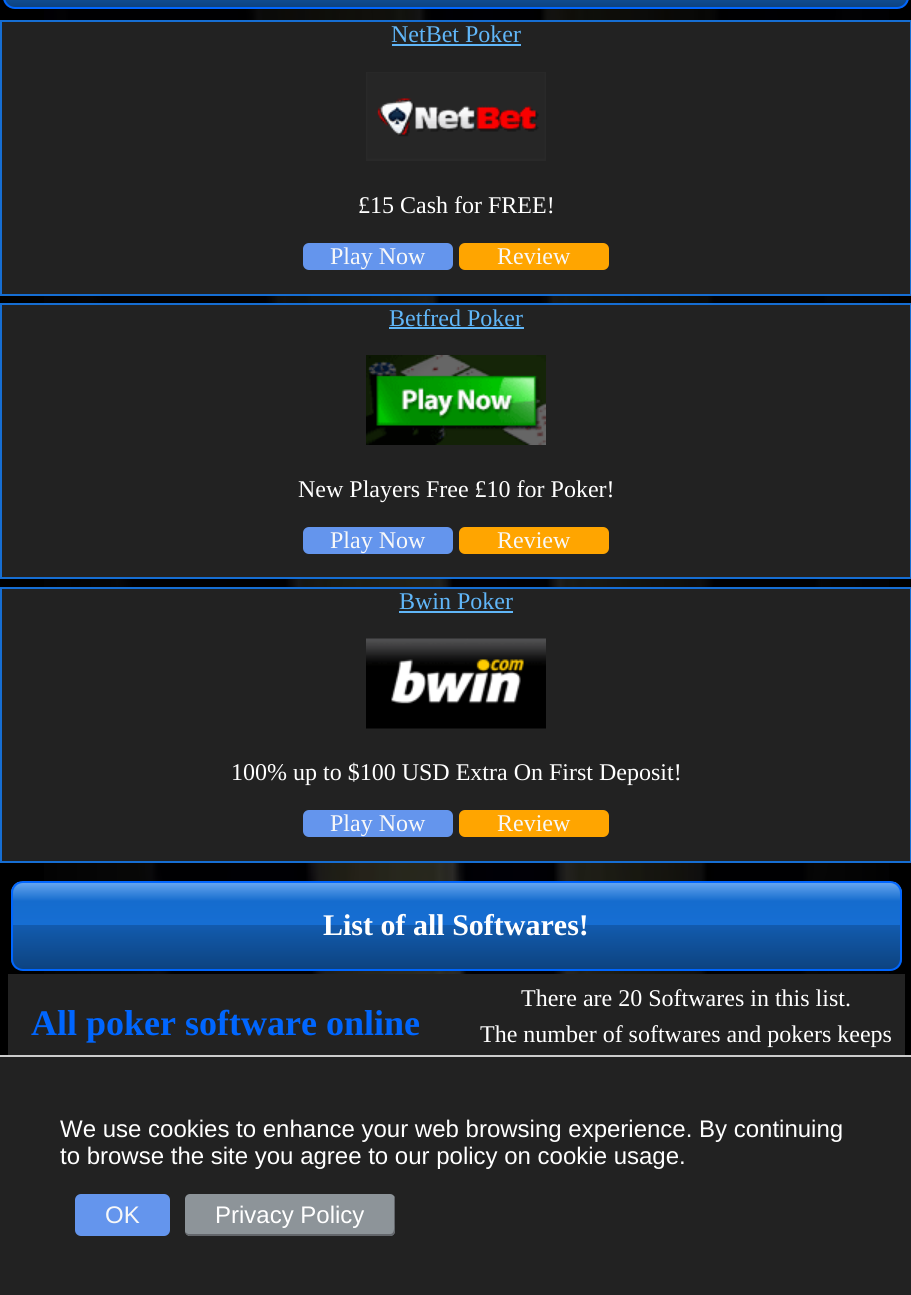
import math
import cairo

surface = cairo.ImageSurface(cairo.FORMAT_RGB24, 911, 1295)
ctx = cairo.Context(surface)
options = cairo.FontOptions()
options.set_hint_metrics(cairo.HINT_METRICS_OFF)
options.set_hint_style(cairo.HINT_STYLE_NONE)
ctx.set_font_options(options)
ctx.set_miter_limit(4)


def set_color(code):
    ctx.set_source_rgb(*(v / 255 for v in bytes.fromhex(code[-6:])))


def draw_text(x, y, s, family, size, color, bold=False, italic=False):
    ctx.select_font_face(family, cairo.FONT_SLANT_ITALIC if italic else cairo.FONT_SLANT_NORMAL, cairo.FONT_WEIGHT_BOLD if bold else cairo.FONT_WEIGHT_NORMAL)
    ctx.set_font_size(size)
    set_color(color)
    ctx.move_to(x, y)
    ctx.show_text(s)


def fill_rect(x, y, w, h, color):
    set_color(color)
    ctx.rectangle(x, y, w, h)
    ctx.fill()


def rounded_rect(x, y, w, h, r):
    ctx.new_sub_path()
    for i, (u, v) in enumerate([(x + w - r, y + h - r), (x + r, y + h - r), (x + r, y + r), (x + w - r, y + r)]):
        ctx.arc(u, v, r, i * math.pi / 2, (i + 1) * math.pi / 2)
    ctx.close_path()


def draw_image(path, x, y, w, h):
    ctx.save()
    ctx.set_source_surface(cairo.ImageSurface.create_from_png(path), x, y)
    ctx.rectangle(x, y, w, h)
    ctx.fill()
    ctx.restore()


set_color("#000000")
ctx.paint()
draw_image("assets/img1.png", 44, 9, 845, 965)
ctx.save()
rounded_rect(3, -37, 906, 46, 12)
ctx.clip()
gradient = cairo.LinearGradient(456, 7.5, 456, -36)
gradient.add_color_stop_rgba(0, 0.051, 0.263, 0.502, 1)
gradient.add_color_stop_rgba(0.5, 0.071, 0.357, 0.682, 1)
gradient.add_color_stop_rgba(0.51, 0.086, 0.431, 0.827, 1)
gradient.add_color_stop_rgba(0.78, 0.082, 0.424, 0.808, 1)
gradient.add_color_stop_rgba(1, 0.412, 0.659, 0.941, 1)
ctx.set_source(gradient)
ctx.rectangle(3, 0, 906, 8)
ctx.fill()
ctx.restore()
rounded_rect(4, -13, 904, 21, 11)
set_color("#0066ff")
ctx.stroke()
set_color("#222222")
ctx.rectangle(1, 21, 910, 274)
ctx.fill_preserve()
set_color("#166ed3")
ctx.stroke()
draw_text(391, 42, "NetBet Poker", "Liberation Serif", 24, "#60b6f8")
fill_rect(392, 44, 129, 2, "#60b6f8")
draw_image("assets/img2.png", 366, 72, 180, 89)
draw_text(358, 213, "£15 Cash for FREE!", "Liberation Serif", 24, "#ffffff")
set_color("#6495ed")
rounded_rect(303, 243, 150, 27, 6)
ctx.fill()
draw_text(330, 264, "Play Now", "Liberation Serif", 24, "#f8f8f8")
set_color("#ffa500")
rounded_rect(459, 243, 150, 27, 6)
ctx.fill()
draw_text(497, 264, "Review", "Liberation Serif", 24, "#f8f8f8")
set_color("#222222")
ctx.rectangle(1, 304, 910, 274)
ctx.fill_preserve()
set_color("#166ed3")
ctx.stroke()
draw_text(389, 326, "Betfred Poker", "Liberation Serif", 24, "#60b6f8")
fill_rect(389, 327, 135, 2, "#60b6f8")
draw_image("assets/img3.png", 366, 355, 180, 90)
draw_text(298, 497, "New Players Free £10 for Poker!", "Liberation Serif", 24, "#ffffff")
set_color("#6495ed")
rounded_rect(303, 527, 150, 27, 6)
ctx.fill()
draw_text(330, 548, "Play Now", "Liberation Serif", 24, "#f8f8f8")
set_color("#ffa500")
rounded_rect(459, 527, 150, 27, 6)
ctx.fill()
draw_text(497, 548, "Review", "Liberation Serif", 24, "#f8f8f8")
set_color("#222222")
ctx.rectangle(1, 588, 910, 274)
ctx.fill_preserve()
set_color("#166ed3")
ctx.stroke()
draw_text(399, 609, "Bwin Poker", "Liberation Serif", 24, "#60b6f8")
fill_rect(399, 611, 114, 2, "#60b6f8")
draw_image("assets/img4.png", 366, 638, 180, 91)
draw_text(231, 780, "100% up to $100 USD Extra On First Deposit!", "Liberation Serif", 24, "#ffffff")
set_color("#6495ed")
rounded_rect(303, 810, 150, 27, 6)
ctx.fill()
draw_text(330, 831, "Play Now", "Liberation Serif", 24, "#f8f8f8")
set_color("#ffa500")
rounded_rect(459, 810, 150, 27, 6)
ctx.fill()
draw_text(497, 831, "Review", "Liberation Serif", 24, "#f8f8f8")
ctx.save()
rounded_rect(11, 881, 891, 90, 12)
ctx.clip()
gradient = cairo.LinearGradient(456, 969, 456, 882)
gradient.add_color_stop_rgba(0, 0.051, 0.263, 0.502, 1)
gradient.add_color_stop_rgba(0.5, 0.071, 0.357, 0.682, 1)
gradient.add_color_stop_rgba(0.51, 0.086, 0.431, 0.827, 1)
gradient.add_color_stop_rgba(0.78, 0.082, 0.424, 0.808, 1)
gradient.add_color_stop_rgba(1, 0.412, 0.659, 0.941, 1)
ctx.set_source(gradient)
ctx.rectangle(11, 882, 891, 87)
ctx.fill()
ctx.restore()
rounded_rect(12, 882, 889, 88, 11)
set_color("#0066ff")
ctx.stroke()
draw_text(323, 935, "List of all Softwares!", "Liberation Serif", 30, "#ffffff", bold=True)
fill_rect(8, 974, 897, 81, "#222222")
draw_text(31, 1035, "All poker software online", "Liberation Serif", 36, "#0066ff", bold=True)
draw_text(521, 1006, "There are 20 Softwares in this list.", "Liberation Serif", 24, "#ffffff")
draw_text(480, 1042, "The number of softwares and pokers keeps", "Liberation Serif", 24, "#ffffff")
fill_rect(0, 1057, 911, 238, "#222222")
fill_rect(0, 1055, 911, 2, "#cccccc")
draw_text(60, 1137, "We use cookies to enhance your web browsing experience. By continuing", "Liberation Sans", 24, "#ffffff")
draw_text(60, 1164, "to browse the site you agree to our policy on cookie usage.", "Liberation Sans", 24, "#ffffff")
set_color("#6495ed")
rounded_rect(75, 1194, 95, 42, 6)
ctx.fill()
draw_text(105, 1223, "OK", "Liberation Sans", 24, "#f8f8f8")
set_color("#8d9499")
rounded_rect(185, 1194, 210, 42, 5)
ctx.fill()
set_color("#63666b")
ctx.new_path()
ctx.move_to(185, 1232)
ctx.curve_to(186, 1234, 188, 1236, 190, 1236)
ctx.line_to(390, 1236)
ctx.curve_to(393, 1236, 395, 1234, 395, 1231)
ctx.line_to(395, 1199)
ctx.curve_to(395, 1198, 395, 1197, 394, 1196)
ctx.line_to(394, 1224)
ctx.curve_to(394, 1227, 395, 1234, 390, 1234)
ctx.line_to(188, 1234)
ctx.close_path()
ctx.fill()
draw_text(215, 1223, "Privacy Policy", "Liberation Sans", 24, "#ffffff")
surface.write_to_png("output.png")
